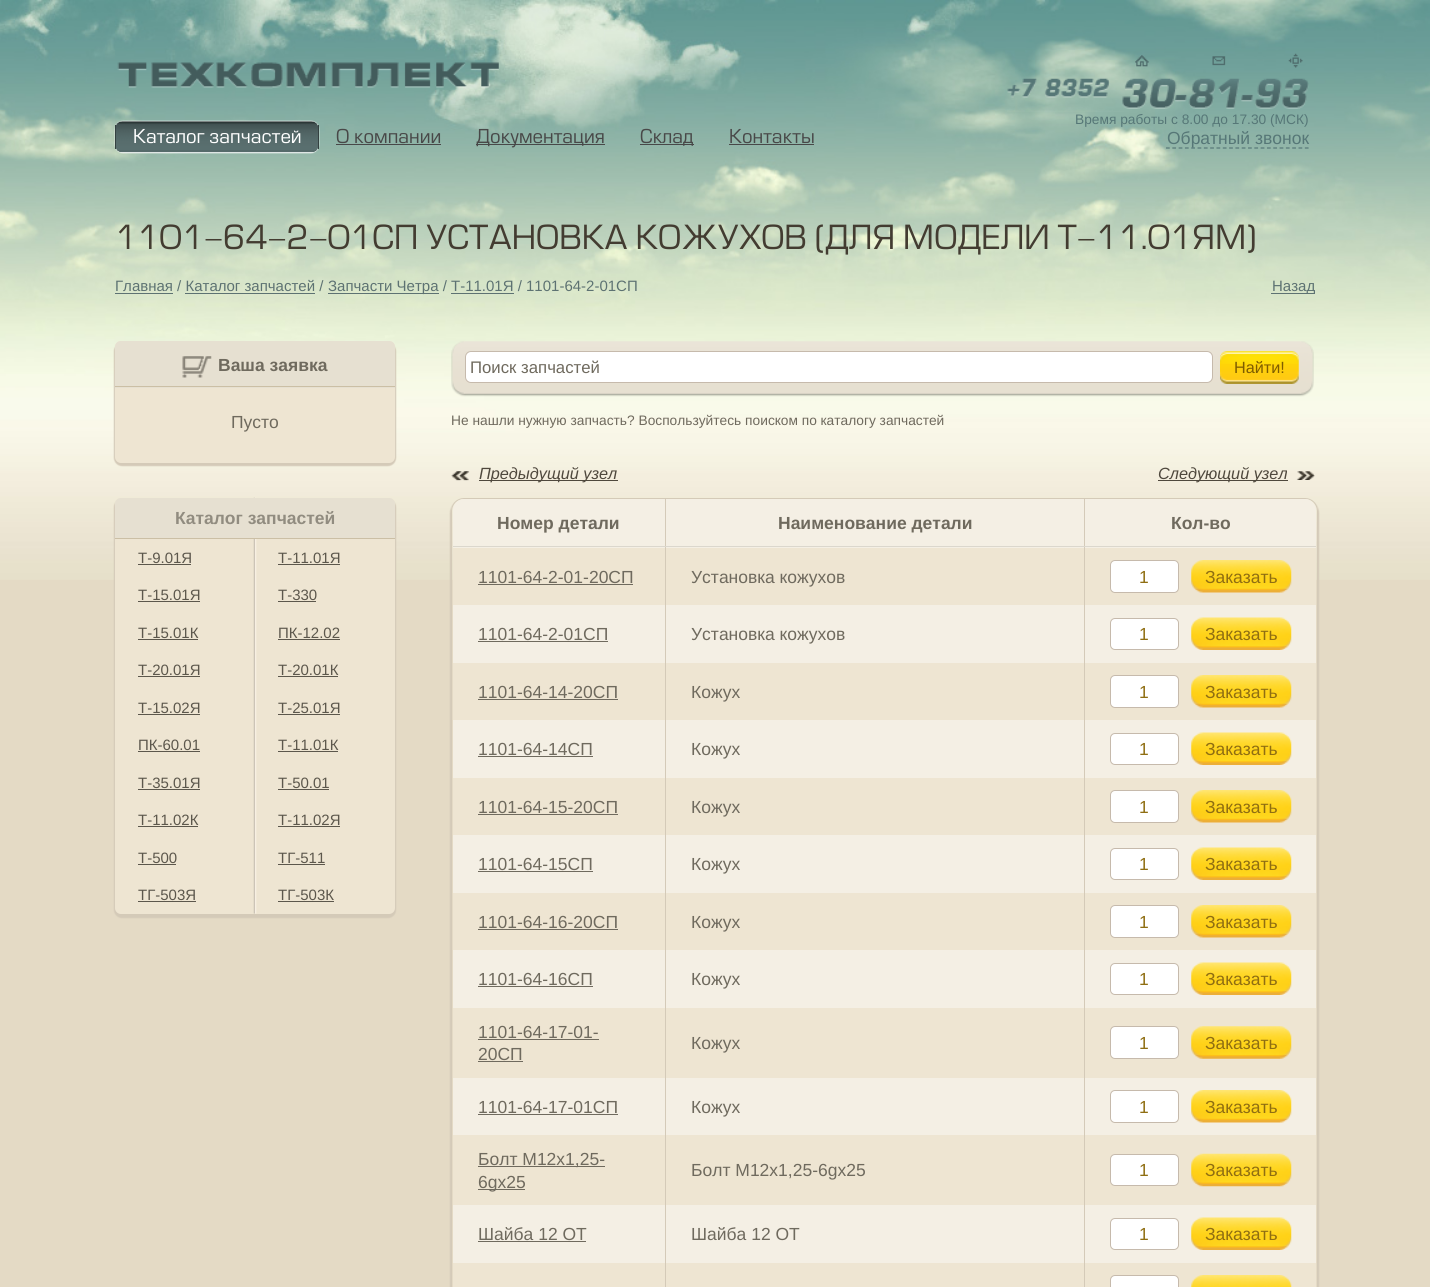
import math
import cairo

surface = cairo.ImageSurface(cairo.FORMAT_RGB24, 1430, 1287)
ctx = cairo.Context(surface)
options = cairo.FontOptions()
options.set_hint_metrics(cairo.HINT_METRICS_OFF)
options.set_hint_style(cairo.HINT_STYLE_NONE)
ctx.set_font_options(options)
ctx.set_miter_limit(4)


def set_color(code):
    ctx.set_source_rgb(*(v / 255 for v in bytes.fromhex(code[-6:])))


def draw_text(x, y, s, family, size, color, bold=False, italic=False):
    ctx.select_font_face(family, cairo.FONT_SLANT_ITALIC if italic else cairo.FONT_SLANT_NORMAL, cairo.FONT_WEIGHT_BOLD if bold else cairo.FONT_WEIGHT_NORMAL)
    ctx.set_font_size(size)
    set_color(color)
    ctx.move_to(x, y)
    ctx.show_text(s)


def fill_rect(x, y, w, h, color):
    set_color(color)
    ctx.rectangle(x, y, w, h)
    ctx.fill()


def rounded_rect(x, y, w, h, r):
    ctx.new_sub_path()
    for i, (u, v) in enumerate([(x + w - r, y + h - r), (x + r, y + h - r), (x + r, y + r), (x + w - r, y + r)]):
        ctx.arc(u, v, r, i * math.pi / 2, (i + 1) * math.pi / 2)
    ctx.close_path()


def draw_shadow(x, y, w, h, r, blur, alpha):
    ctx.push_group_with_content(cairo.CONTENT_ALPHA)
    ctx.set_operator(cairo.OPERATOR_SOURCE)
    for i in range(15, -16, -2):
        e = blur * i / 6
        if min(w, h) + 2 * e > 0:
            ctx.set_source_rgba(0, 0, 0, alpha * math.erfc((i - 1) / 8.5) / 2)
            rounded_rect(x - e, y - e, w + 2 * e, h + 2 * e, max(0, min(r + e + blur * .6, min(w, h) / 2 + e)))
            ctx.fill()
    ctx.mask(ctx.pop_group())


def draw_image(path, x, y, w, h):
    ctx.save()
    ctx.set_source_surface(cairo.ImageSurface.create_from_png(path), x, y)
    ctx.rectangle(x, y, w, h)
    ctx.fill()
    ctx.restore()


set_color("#e4dac5")
ctx.paint()
draw_image("assets/img1.png", 0, 0, 1430, 580)
draw_image("assets/img2.png", 117, 62, 382, 27)
set_color("#ffffff")
draw_shadow(115, 121, 204, 32, 8, 0.5, 1)
draw_image("assets/img3.png", 116, 121, 202, 32)
fill_rect(318, 125, 1, 24, "#344141")
fill_rect(115, 125, 1, 24, "#344141")
draw_text(133, 143, "Каталог запчастей", "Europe", 18.75, "#ffffff")
draw_text(336, 143, "О компании", "Europe", 18.75, "#484848")
fill_rect(336, 144, 105, 1, "#484848")
fill_rect(476, 144, 129, 1, "#484848")
draw_text(476, 143, "Документация", "Europe", 18.75, "#484848")
fill_rect(640, 144, 54, 1, "#484848")
draw_text(640, 143, "Склад", "Europe", 18.75, "#484848")
draw_text(729, 143, "Контакты", "Europe", 18.75, "#484848")
fill_rect(729, 144, 85, 1, "#484848")
draw_image("assets/img4.png", 1135, 55, 14, 12)
draw_image("assets/img5.png", 1212, 56, 14, 10)
draw_image("assets/img6.png", 1288, 53, 15, 15)
draw_image("assets/img7.png", 1007, 78, 302, 34)
draw_text(1075, 124, "Время работы с 8.00 до 17.30 (МСК)", "Liberation Sans", 13.75, "#567777")
ctx.new_path()
ctx.move_to(1166, 148)
ctx.line_to(1309, 148)
ctx.set_line_width(1.2)
ctx.set_dash([3.75, 2.56])
ctx.stroke()
draw_text(1167, 144, "Обратный звонок", "Liberation Sans", 17.5, "#567777")
draw_text(115, 249, "1101-64-2-01СП УСТАНОВКА КОЖУХОВ (ДЛЯ МОДЕЛИ Т-11.01ЯМ)", "Europe", 32.5, "#433c31")
draw_text(115, 291, "Главная / Каталог запчастей /", "Liberation Sans", 15, "#5d7272")
fill_rect(115, 293, 58, 1, "#5d7272")
fill_rect(328, 293, 111, 1, "#5d7272")
draw_text(328, 291, "Запчасти Четра / Т-11.01Я / 1101-64-2-01СП", "Liberation Sans", 15, "#5d7272")
fill_rect(185, 293, 130, 1, "#5d7272")
fill_rect(451, 293, 63, 1, "#5d7272")
fill_rect(1271, 293, 44, 1, "#5d7272")
draw_text(1272, 291, "Назад", "Liberation Sans", 15, "#5d7272")
set_color("#d4cab8")
draw_shadow(114, 343, 282, 123, 8, 0.5, 1)
set_color("#eee5d2")
rounded_rect(115, 341, 280, 122, 6)
ctx.fill()
set_color("#e6e0d1")
ctx.new_path()
ctx.move_to(121, 341)
ctx.line_to(389, 341)
ctx.curve_to(392.5, 341, 395, 343.5, 395, 347)
ctx.line_to(395, 388)
ctx.line_to(115, 388)
ctx.line_to(115, 347)
ctx.curve_to(115, 343.5, 117.5, 341, 121, 341)
ctx.close_path()
ctx.fill()
fill_rect(115, 386, 280, 1, "#cbbfa5")
draw_image("assets/img8.png", 182, 356, 30, 22)
draw_text(218, 371, "Ваша заявка", "Liberation Sans", 17.5, "#6f6a5e", bold=True)
draw_text(231, 428, "Пусто", "Liberation Sans", 17.5, "#6f6a5e")
draw_image("assets/img9.png", 451, 341, 14, 56)
draw_image("assets/img10.png", 465, 341, 835, 56)
set_color("#ffffff")
rounded_rect(465.5, 351.5, 747, 31, 5.5)
ctx.fill_preserve()
set_color("#c6baac")
ctx.set_line_width(1)
ctx.set_dash([])
ctx.stroke()
draw_text(470, 373, "Поиск запчастей", "Liberation Sans", 16.75, "#6f6a5e")
draw_image("assets/img11.png", 1220, 351, 79, 33)
draw_text(1234, 373, "Найти!", "Liberation Sans", 16.25, "#7e5d00")
draw_image("assets/img12.png", 1300, 341, 14, 56)
draw_text(451, 425, "Не нашли нужную запчасть? Воспользуйтесь поиском по каталогу запчастей", "Liberation Sans", 13.75, "#6f6a5e")
draw_image("assets/img13.png", 451, 471, 19, 10)
fill_rect(479, 480, 139, 1, "#4f483d")
draw_text(479, 479, "Предыдущий узел", "Liberation Sans", 16.25, "#4f483d", italic=True)
draw_image("assets/img14.png", 1296, 471, 19, 9)
fill_rect(1158, 480, 130, 1, "#4f483d")
draw_text(1158, 479, "Следующий узел", "Liberation Sans", 16.25, "#4f483d", italic=True)
ctx.save()
ctx.set_fill_rule(cairo.FILL_RULE_EVEN_ODD)
ctx.new_path()
ctx.move_to(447, 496)
ctx.line_to(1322, 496)
ctx.line_to(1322, 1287)
ctx.line_to(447, 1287)
ctx.close_path()
ctx.move_to(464, 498)
ctx.line_to(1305, 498)
ctx.curve_to(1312, 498, 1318, 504, 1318, 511)
ctx.line_to(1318, 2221)
ctx.curve_to(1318, 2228, 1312, 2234, 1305, 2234)
ctx.line_to(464, 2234)
ctx.curve_to(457, 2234, 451, 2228, 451, 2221)
ctx.line_to(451, 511)
ctx.curve_to(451, 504, 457, 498, 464, 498)
ctx.close_path()
ctx.clip()
set_color("#d4cab8")
draw_shadow(450, 499, 869, 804, 14, 0.5, 1)
ctx.restore()
rounded_rect(451.5, 498.5, 866, 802, 12.5)
set_color("#d4cab8")
ctx.stroke()
set_color("#f4efe4")
ctx.new_path()
ctx.move_to(464, 499)
ctx.line_to(1305, 499)
ctx.curve_to(1311, 499, 1316, 504, 1316, 510)
ctx.line_to(1316, 548)
ctx.line_to(453, 548)
ctx.line_to(453, 510)
ctx.curve_to(453, 504, 458, 499, 464, 499)
ctx.close_path()
ctx.fill()
fill_rect(453, 605, 863, 58, "#f4efe4")
fill_rect(453, 720, 863, 58, "#f4efe4")
fill_rect(453, 835, 863, 58, "#f4efe4")
fill_rect(453, 950, 863, 58, "#f4efe4")
fill_rect(453, 1078, 863, 57, "#f4efe4")
fill_rect(453, 1205, 863, 58, "#f4efe4")
fill_rect(1084, 546, 1, 741, "#d4cab8")
fill_rect(1084, 546, 232, 1, "#dbd7cd")
fill_rect(1084, 499, 1, 49, "#d4cab8")
fill_rect(665, 546, 1, 741, "#d4cab8")
fill_rect(665, 546, 420, 1, "#dbd7cd")
fill_rect(665, 499, 1, 49, "#d4cab8")
fill_rect(453, 546, 213, 1, "#dbd7cd")
draw_text(497, 529, "Номер детали", "Liberation Sans", 17.5, "#6f6a5e", bold=True)
draw_text(778, 529, "Наименование детали", "Liberation Sans", 17.5, "#6f6a5e", bold=True)
draw_text(1171, 529, "Кол-во", "Liberation Sans", 17.5, "#6f6a5e", bold=True)
fill_rect(453, 1263, 212, 24, "#eee5d2")
fill_rect(666, 1263, 418, 24, "#eee5d2")
fill_rect(1085, 1263, 231, 24, "#eee5d2")
set_color("#ffffff")
rounded_rect(1110.5, 1275.5, 68, 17, 4.5)
ctx.fill_preserve()
set_color("#c6baac")
ctx.stroke()
draw_image("assets/img15.png", 1191, 1275, 101, 12)
fill_rect(453, 548, 212, 57, "#eee5d2")
draw_text(478, 583, "1101-64-2-01-20СП", "Liberation Sans", 17.5, "#6f6a5e")
fill_rect(478, 584, 155, 1, "#6f6a5e")
fill_rect(666, 548, 418, 57, "#eee5d2")
draw_text(691, 583, "Установка кожухов", "Liberation Sans", 17.5, "#6f6a5e")
fill_rect(1085, 548, 231, 57, "#eee5d2")
set_color("#ffffff")
rounded_rect(1110.5, 560.5, 68, 32, 4.5)
ctx.fill_preserve()
set_color("#c6baac")
ctx.stroke()
draw_text(1139, 583, "1", "Liberation Sans", 17.5, "#8f6e12")
draw_image("assets/img16.png", 1191, 560, 101, 33)
draw_text(1205, 583, "Заказать", "Liberation Sans", 17.5, "#8f6e12")
draw_text(478, 640, "1101-64-2-01СП", "Liberation Sans", 17.5, "#6f6a5e")
fill_rect(478, 641, 130, 1, "#6f6a5e")
draw_text(691, 640, "Установка кожухов", "Liberation Sans", 17.5, "#6f6a5e")
set_color("#ffffff")
rounded_rect(1110.5, 618.5, 68, 31, 4.5)
ctx.fill_preserve()
set_color("#c6baac")
ctx.stroke()
draw_text(1139, 640, "1", "Liberation Sans", 17.5, "#8f6e12")
draw_image("assets/img17.png", 1191, 617, 101, 33)
draw_text(1205, 640, "Заказать", "Liberation Sans", 17.5, "#8f6e12")
fill_rect(453, 663, 212, 57, "#eee5d2")
draw_text(478, 698, "1101-64-14-20СП", "Liberation Sans", 17.5, "#6f6a5e")
fill_rect(478, 699, 140, 1, "#6f6a5e")
fill_rect(666, 663, 418, 57, "#eee5d2")
draw_text(691, 698, "Кожух", "Liberation Sans", 17.5, "#6f6a5e")
fill_rect(1085, 663, 231, 57, "#eee5d2")
set_color("#ffffff")
rounded_rect(1110.5, 675.5, 68, 32, 4.5)
ctx.fill_preserve()
set_color("#c6baac")
ctx.stroke()
draw_text(1139, 698, "1", "Liberation Sans", 17.5, "#8f6e12")
draw_image("assets/img16.png", 1191, 675, 101, 33)
draw_text(1205, 698, "Заказать", "Liberation Sans", 17.5, "#8f6e12")
draw_text(478, 755, "1101-64-14СП", "Liberation Sans", 17.5, "#6f6a5e")
fill_rect(478, 756, 115, 1, "#6f6a5e")
draw_text(691, 755, "Кожух", "Liberation Sans", 17.5, "#6f6a5e")
set_color("#ffffff")
rounded_rect(1110.5, 733.5, 68, 31, 4.5)
ctx.fill_preserve()
set_color("#c6baac")
ctx.stroke()
draw_text(1139, 755, "1", "Liberation Sans", 17.5, "#8f6e12")
draw_image("assets/img17.png", 1191, 732, 101, 33)
draw_text(1205, 755, "Заказать", "Liberation Sans", 17.5, "#8f6e12")
fill_rect(453, 778, 212, 57, "#eee5d2")
draw_text(478, 813, "1101-64-15-20СП", "Liberation Sans", 17.5, "#6f6a5e")
fill_rect(478, 814, 140, 1, "#6f6a5e")
fill_rect(666, 778, 418, 57, "#eee5d2")
draw_text(691, 813, "Кожух", "Liberation Sans", 17.5, "#6f6a5e")
fill_rect(1085, 778, 231, 57, "#eee5d2")
set_color("#ffffff")
rounded_rect(1110.5, 790.5, 68, 32, 4.5)
ctx.fill_preserve()
set_color("#c6baac")
ctx.stroke()
draw_text(1139, 813, "1", "Liberation Sans", 17.5, "#8f6e12")
draw_image("assets/img16.png", 1191, 790, 101, 33)
draw_text(1205, 813, "Заказать", "Liberation Sans", 17.5, "#8f6e12")
draw_text(478, 870, "1101-64-15СП", "Liberation Sans", 17.5, "#6f6a5e")
fill_rect(478, 871, 115, 1, "#6f6a5e")
draw_text(691, 870, "Кожух", "Liberation Sans", 17.5, "#6f6a5e")
set_color("#ffffff")
rounded_rect(1110.5, 848.5, 68, 31, 4.5)
ctx.fill_preserve()
set_color("#c6baac")
ctx.stroke()
draw_text(1139, 870, "1", "Liberation Sans", 17.5, "#8f6e12")
draw_image("assets/img17.png", 1191, 847, 101, 33)
draw_text(1205, 870, "Заказать", "Liberation Sans", 17.5, "#8f6e12")
fill_rect(453, 893, 212, 57, "#eee5d2")
draw_text(478, 928, "1101-64-16-20СП", "Liberation Sans", 17.5, "#6f6a5e")
fill_rect(478, 929, 140, 1, "#6f6a5e")
fill_rect(666, 893, 418, 57, "#eee5d2")
draw_text(691, 928, "Кожух", "Liberation Sans", 17.5, "#6f6a5e")
fill_rect(1085, 893, 231, 57, "#eee5d2")
set_color("#ffffff")
rounded_rect(1110.5, 905.5, 68, 32, 4.5)
ctx.fill_preserve()
set_color("#c6baac")
ctx.stroke()
draw_text(1139, 928, "1", "Liberation Sans", 17.5, "#8f6e12")
draw_image("assets/img16.png", 1191, 905, 101, 33)
draw_text(1205, 928, "Заказать", "Liberation Sans", 17.5, "#8f6e12")
draw_text(478, 985, "1101-64-16СП", "Liberation Sans", 17.5, "#6f6a5e")
fill_rect(478, 986, 115, 1, "#6f6a5e")
draw_text(691, 985, "Кожух", "Liberation Sans", 17.5, "#6f6a5e")
set_color("#ffffff")
rounded_rect(1110.5, 963.5, 68, 31, 4.5)
ctx.fill_preserve()
set_color("#c6baac")
ctx.stroke()
draw_text(1139, 985, "1", "Liberation Sans", 17.5, "#8f6e12")
draw_image("assets/img17.png", 1191, 962, 101, 33)
draw_text(1205, 985, "Заказать", "Liberation Sans", 17.5, "#8f6e12")
fill_rect(453, 1008, 212, 70, "#eee5d2")
draw_text(478, 1038, "1101-64-17-01-", "Liberation Sans", 17.5, "#6f6a5e")
fill_rect(478, 1039, 121, 1, "#6f6a5e")
draw_text(478, 1060, "20СП", "Liberation Sans", 17.5, "#6f6a5e")
fill_rect(478, 1061, 45, 1, "#6f6a5e")
fill_rect(666, 1008, 418, 70, "#eee5d2")
draw_text(691, 1049, "Кожух", "Liberation Sans", 17.5, "#6f6a5e")
fill_rect(1085, 1008, 231, 70, "#eee5d2")
set_color("#ffffff")
rounded_rect(1110.5, 1026.5, 68, 32, 4.5)
ctx.fill_preserve()
set_color("#c6baac")
ctx.stroke()
draw_text(1139, 1049, "1", "Liberation Sans", 17.5, "#8f6e12")
draw_image("assets/img18.png", 1191, 1026, 101, 33)
draw_text(1205, 1049, "Заказать", "Liberation Sans", 17.5, "#8f6e12")
draw_text(478, 1113, "1101-64-17-01СП", "Liberation Sans", 17.5, "#6f6a5e")
fill_rect(478, 1114, 140, 1, "#6f6a5e")
draw_text(691, 1113, "Кожух", "Liberation Sans", 17.5, "#6f6a5e")
set_color("#ffffff")
rounded_rect(1110.5, 1090.5, 68, 32, 4.5)
ctx.fill_preserve()
set_color("#c6baac")
ctx.stroke()
draw_text(1139, 1113, "1", "Liberation Sans", 17.5, "#8f6e12")
draw_image("assets/img19.png", 1191, 1090, 101, 33)
draw_text(1205, 1113, "Заказать", "Liberation Sans", 17.5, "#8f6e12")
fill_rect(453, 1135, 212, 70, "#eee5d2")
fill_rect(478, 1166, 127, 1, "#6f6a5e")
draw_text(478, 1165, "Болт М12х1,25-", "Liberation Sans", 17.5, "#6f6a5e")
fill_rect(478, 1189, 47, 1, "#6f6a5e")
draw_text(478, 1188, "6gх25", "Liberation Sans", 17.5, "#6f6a5e")
fill_rect(666, 1135, 418, 70, "#eee5d2")
draw_text(691, 1176, "Болт М12х1,25-6gх25", "Liberation Sans", 17.5, "#6f6a5e")
fill_rect(1085, 1135, 231, 70, "#eee5d2")
set_color("#ffffff")
rounded_rect(1110.5, 1154.5, 68, 31, 4.5)
ctx.fill_preserve()
set_color("#c6baac")
ctx.stroke()
draw_text(1139, 1176, "1", "Liberation Sans", 17.5, "#8f6e12")
draw_image("assets/img20.png", 1191, 1153, 101, 34)
draw_text(1205, 1176, "Заказать", "Liberation Sans", 17.5, "#8f6e12")
draw_text(478, 1240, "Шайба 12 ОТ", "Liberation Sans", 17.5, "#6f6a5e")
fill_rect(478, 1241, 108, 1, "#6f6a5e")
draw_text(691, 1240, "Шайба 12 ОТ", "Liberation Sans", 17.5, "#6f6a5e")
set_color("#ffffff")
rounded_rect(1110.5, 1218.5, 68, 31, 4.5)
ctx.fill_preserve()
set_color("#c6baac")
ctx.stroke()
draw_text(1139, 1240, "1", "Liberation Sans", 17.5, "#8f6e12")
draw_image("assets/img17.png", 1191, 1217, 101, 33)
draw_text(1205, 1240, "Заказать", "Liberation Sans", 17.5, "#8f6e12")
set_color("#d4cab8")
draw_shadow(114, 499, 282, 419, 8, 0.5, 1)
set_color("#eee5d2")
rounded_rect(115, 498, 280, 416, 6)
ctx.fill()
draw_image("assets/img21.png", 253, 497, 4, 417)
set_color("#e6e0d1")
ctx.new_path()
ctx.move_to(121, 498)
ctx.line_to(389, 498)
ctx.curve_to(392.5, 498, 395, 500.5, 395, 504)
ctx.line_to(395, 539)
ctx.line_to(115, 539)
ctx.line_to(115, 504)
ctx.curve_to(115, 500.5, 117.5, 498, 121, 498)
ctx.close_path()
ctx.fill()
fill_rect(115, 538, 280, 1, "#cbbfa5")
draw_text(175, 524, "Каталог запчастей", "Liberation Sans", 17.5, "#918c80", bold=True)
draw_text(138, 563, "Т-9.01Я", "Liberation Sans", 15, "#5c574c")
fill_rect(138, 564, 53, 1, "#5c574c")
draw_text(278, 563, "Т-11.01Я", "Liberation Sans", 15, "#5c574c")
fill_rect(278, 564, 62, 1, "#5c574c")
draw_text(138, 600, "Т-15.01Я", "Liberation Sans", 15, "#5c574c")
fill_rect(138, 601, 62, 1, "#5c574c")
draw_text(278, 600, "Т-330", "Liberation Sans", 15, "#5c574c")
fill_rect(278, 601, 38, 1, "#5c574c")
draw_text(138, 638, "Т-15.01К", "Liberation Sans", 15, "#5c574c")
fill_rect(138, 639, 60, 1, "#5c574c")
draw_text(278, 638, "ПК-12.02", "Liberation Sans", 15, "#5c574c")
fill_rect(278, 639, 62, 1, "#5c574c")
draw_text(138, 675, "Т-20.01Я", "Liberation Sans", 15, "#5c574c")
fill_rect(138, 676, 62, 1, "#5c574c")
draw_text(278, 675, "Т-20.01К", "Liberation Sans", 15, "#5c574c")
fill_rect(278, 676, 60, 1, "#5c574c")
draw_text(138, 713, "Т-15.02Я", "Liberation Sans", 15, "#5c574c")
fill_rect(138, 714, 62, 1, "#5c574c")
draw_text(278, 713, "Т-25.01Я", "Liberation Sans", 15, "#5c574c")
fill_rect(278, 714, 62, 1, "#5c574c")
draw_text(138, 750, "ПК-60.01", "Liberation Sans", 15, "#5c574c")
fill_rect(138, 751, 62, 1, "#5c574c")
draw_text(278, 750, "Т-11.01К", "Liberation Sans", 15, "#5c574c")
fill_rect(278, 751, 60, 1, "#5c574c")
draw_text(138, 788, "Т-35.01Я", "Liberation Sans", 15, "#5c574c")
fill_rect(138, 789, 62, 1, "#5c574c")
draw_text(278, 788, "Т-50.01", "Liberation Sans", 15, "#5c574c")
fill_rect(278, 789, 51, 1, "#5c574c")
draw_text(138, 825, "Т-11.02К", "Liberation Sans", 15, "#5c574c")
fill_rect(138, 826, 60, 1, "#5c574c")
draw_text(278, 825, "Т-11.02Я", "Liberation Sans", 15, "#5c574c")
fill_rect(278, 826, 62, 1, "#5c574c")
draw_text(138, 863, "Т-500", "Liberation Sans", 15, "#5c574c")
fill_rect(138, 864, 38, 1, "#5c574c")
draw_text(278, 863, "ТГ-511", "Liberation Sans", 15, "#5c574c")
fill_rect(278, 864, 47, 1, "#5c574c")
draw_text(138, 900, "ТГ-503Я", "Liberation Sans", 15, "#5c574c")
fill_rect(138, 901, 58, 1, "#5c574c")
draw_text(278, 900, "ТГ-503К", "Liberation Sans", 15, "#5c574c")
fill_rect(278, 901, 56, 1, "#5c574c")
surface.write_to_png("output.png")
